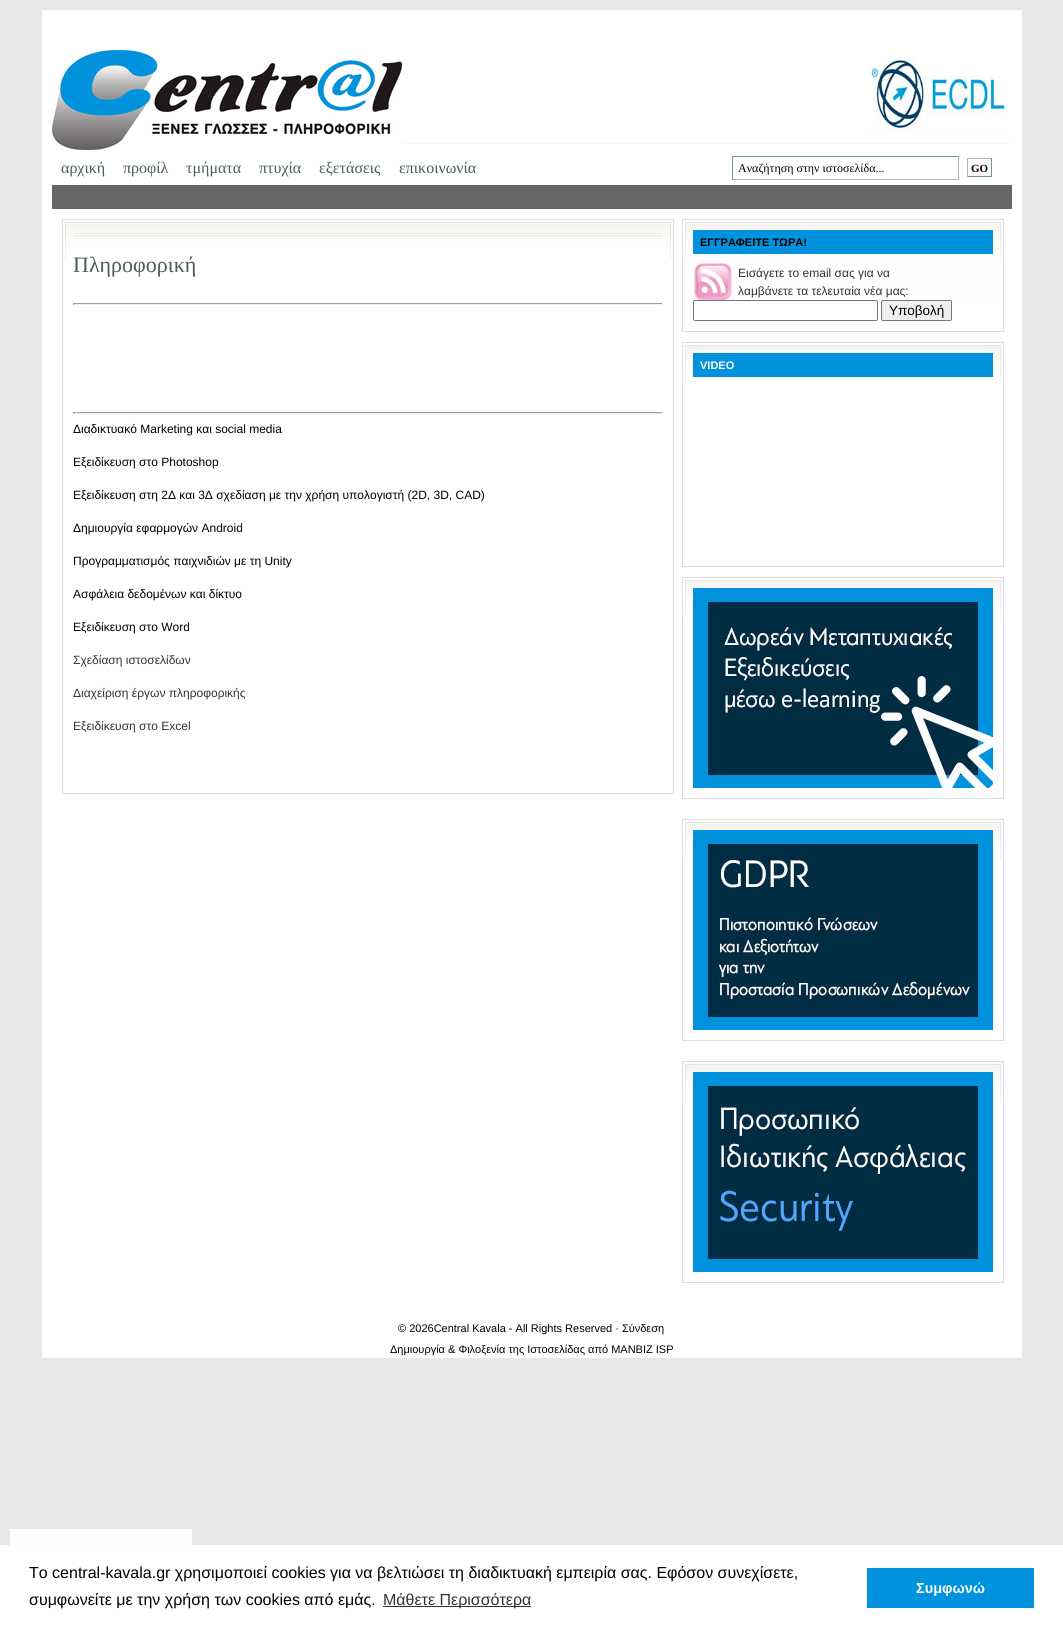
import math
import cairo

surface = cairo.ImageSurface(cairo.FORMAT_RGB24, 1063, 1631)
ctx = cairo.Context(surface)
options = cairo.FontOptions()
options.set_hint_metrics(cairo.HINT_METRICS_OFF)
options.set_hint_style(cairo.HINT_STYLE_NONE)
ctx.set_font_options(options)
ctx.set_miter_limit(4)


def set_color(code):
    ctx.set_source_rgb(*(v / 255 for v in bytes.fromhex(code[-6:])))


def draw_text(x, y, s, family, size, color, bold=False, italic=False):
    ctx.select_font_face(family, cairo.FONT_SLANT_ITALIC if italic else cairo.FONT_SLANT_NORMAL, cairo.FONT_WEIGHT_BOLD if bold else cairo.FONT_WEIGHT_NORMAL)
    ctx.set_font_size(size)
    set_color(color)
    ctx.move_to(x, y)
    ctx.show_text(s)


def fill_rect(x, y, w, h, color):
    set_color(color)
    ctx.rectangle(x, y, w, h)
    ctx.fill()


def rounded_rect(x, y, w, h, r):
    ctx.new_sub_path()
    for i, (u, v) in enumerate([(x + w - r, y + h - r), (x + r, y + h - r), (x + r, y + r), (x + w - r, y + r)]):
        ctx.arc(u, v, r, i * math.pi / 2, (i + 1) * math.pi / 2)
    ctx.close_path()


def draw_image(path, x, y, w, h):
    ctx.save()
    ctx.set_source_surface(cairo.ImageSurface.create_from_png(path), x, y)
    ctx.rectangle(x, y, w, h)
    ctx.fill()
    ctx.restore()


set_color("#e8e8e8")
ctx.paint()
fill_rect(42, 10, 980, 1348, "#ffffff")
draw_image("assets/img1.png", 52, 50, 960, 100)
draw_image("assets/img2.png", 52, 50, 350, 100)
draw_image("assets/img3.png", 869, 59, 136, 72)
draw_text(61, 173, "αρχική", "Liberation Serif", 16, "#495d5c")
draw_text(123, 173, "προφίλ", "Liberation Serif", 16, "#495d5c")
draw_text(186, 173, "τμήματα", "Liberation Serif", 16, "#495d5c")
draw_text(259, 173, "πτυχία", "Liberation Serif", 16, "#495d5c")
draw_text(319, 173, "εξετάσεις", "Liberation Serif", 16, "#495d5c")
draw_text(399, 173, "επικοινωνία", "Liberation Serif", 16, "#495d5c")
fill_rect(732, 156, 227, 1, "#759697")
fill_rect(958, 156, 1, 24, "#a3bab9")
fill_rect(732, 179, 227, 1, "#a3bab9")
fill_rect(732, 156, 1, 24, "#759697")
draw_text(738, 172, "Αναζήτηση στην ιστοσελίδα...", "Liberation Serif", 12, "#000000")
fill_rect(967, 158, 25, 1, "#a3bab9")
fill_rect(991, 158, 1, 19, "#759697")
fill_rect(967, 176, 25, 1, "#759697")
fill_rect(967, 158, 1, 19, "#a3bab9")
draw_text(971, 172, "GO", "Liberation Serif", 11, "#000000", bold=True)
fill_rect(52, 185, 960, 24, "#666666")
draw_image("assets/img4.png", 65, 222, 606, 38)
ctx.rectangle(62.5, 219.5, 611, 574)
set_color("#dddddd")
ctx.set_line_width(1)
ctx.stroke()
fill_rect(73, 233, 590, 1, "#eaeaea")
fill_rect(73, 235, 590, 1, "#eaeaea")
draw_text(73, 272, "Πληροφορική", "Liberation Serif", 22, "#495d5c")
fill_rect(73, 303, 590, 1, "#9f9f9f")
fill_rect(662, 303, 1, 2, "#eeeeee")
fill_rect(73, 304, 590, 1, "#eeeeee")
fill_rect(73, 303, 1, 2, "#9f9f9f")
fill_rect(73, 412, 590, 1, "#9f9f9f")
fill_rect(662, 412, 1, 2, "#eeeeee")
fill_rect(73, 413, 590, 1, "#eeeeee")
fill_rect(73, 412, 1, 2, "#9f9f9f")
draw_text(73, 433, "Διαδικτυακό Marketing και social media", "Liberation Sans", 12, "#000000")
draw_text(73, 466, "Εξειδίκευση στο Photoshop", "Liberation Sans", 12, "#000000")
draw_text(73, 499, "Εξειδίκευση στη 2Δ και 3Δ σχεδίαση με την χρήση υπολογιστή (2D, 3D, CAD)", "Liberation Sans", 12, "#000000")
draw_text(73, 532, "Δημιουργία εφαρμογών Android", "Liberation Sans", 12, "#000000")
draw_text(73, 565, "Προγραμματισμός παιχνιδιών με τη Unity", "Liberation Sans", 12, "#000000")
draw_text(73, 598, "Ασφάλεια δεδομένων και δίκτυο", "Liberation Sans", 12, "#000000")
draw_text(73, 631, "Εξειδίκευση στο Word", "Liberation Sans", 12, "#000000")
draw_text(73, 664, "Σχεδίαση ιστοσελίδων", "Liberation Sans", 12, "#333333")
draw_text(73, 697, "Διαχείριση έργων πληροφορικής", "Liberation Sans", 12, "#333333")
draw_text(73, 730, "Εξειδίκευση στο Excel", "Liberation Sans", 12, "#333333")
draw_image("assets/img5.png", 685, 222, 316, 79)
ctx.rectangle(682.5, 219.5, 321, 112)
set_color("#dddddd")
ctx.stroke()
fill_rect(693, 230, 300, 24, "#0092dd")
draw_text(700, 246, "ΕΓΓΡΑΦΕΙΤΕ ΤΩΡΑ!", "Liberation Sans", 11, "#000000", bold=True)
draw_text(738, 277, "Εισάγετε το email σας για να", "Liberation Sans", 12, "#333333")
draw_text(738, 295, "λαμβάνετε τα τελευταία νέα μας:", "Liberation Sans", 12, "#333333")
set_color("#ffffff")
rounded_rect(693.5, 300.5, 184, 20, 1.5)
ctx.fill_preserve()
set_color("#767676")
ctx.stroke()
set_color("#efefef")
rounded_rect(881.5, 300.5, 70, 20, 1.5)
ctx.fill_preserve()
set_color("#767676")
ctx.stroke()
draw_text(889, 315, "Υποβολή", "Liberation Sans", 13.5, "#000000")
draw_image("assets/img6.png", 685, 345, 316, 38)
ctx.rectangle(682.5, 342.5, 321, 224)
set_color("#dddddd")
ctx.stroke()
fill_rect(693, 353, 300, 24, "#0092dd")
draw_text(700, 369, "VIDEO", "Liberation Sans", 11, "#ffffff", bold=True)
draw_image("assets/img6.png", 685, 580, 316, 38)
ctx.rectangle(682.5, 577.5, 321, 221)
set_color("#dddddd")
ctx.stroke()
draw_image("assets/img7.png", 693, 588, 300, 200)
draw_image("assets/img6.png", 685, 822, 316, 38)
ctx.rectangle(682.5, 819.5, 321, 221)
ctx.stroke()
draw_image("assets/img8.png", 693, 830, 300, 200)
draw_image("assets/img6.png", 685, 1064, 316, 38)
ctx.rectangle(682.5, 1061.5, 321, 221)
ctx.stroke()
draw_image("assets/img9.png", 693, 1072, 300, 200)
draw_text(398, 1332, "© 2026Central Kavala - All Rights Reserved · Σύνδεση", "Liberation Sans", 11, "#000000")
draw_text(390, 1353, "Δημιουργία & Φιλοξενία της Ιστοσελίδας από MANBIZ ISP", "Liberation Sans", 11, "#000000")
draw_image("assets/img10.png", 10, 1529, 182, 16)
fill_rect(0, 1545, 1063, 86, "#ffffff")
draw_text(29, 1578, "Το central-kavala.gr χρησιμοποιεί cookies για να βελτιώσει τη διαδικτυακή εμπειρία σας. Εφόσον συνεχίσετε,", "Liberation Sans", 16, "#000000")
draw_text(29, 1605, "συμφωνείτε με την χρήση των cookies από εμάς.", "Liberation Sans", 16, "#000000")
fill_rect(383, 1606, 148, 1, "#333333")
draw_text(383, 1605, "Μάθετε Περισσότερα", "Liberation Sans", 16, "#333333")
fill_rect(867, 1568, 167, 40, "#0092dd")
draw_text(916, 1593, "Συμφωνώ", "Liberation Sans", 14.5, "#ffffff", bold=True)
surface.write_to_png("output.png")
